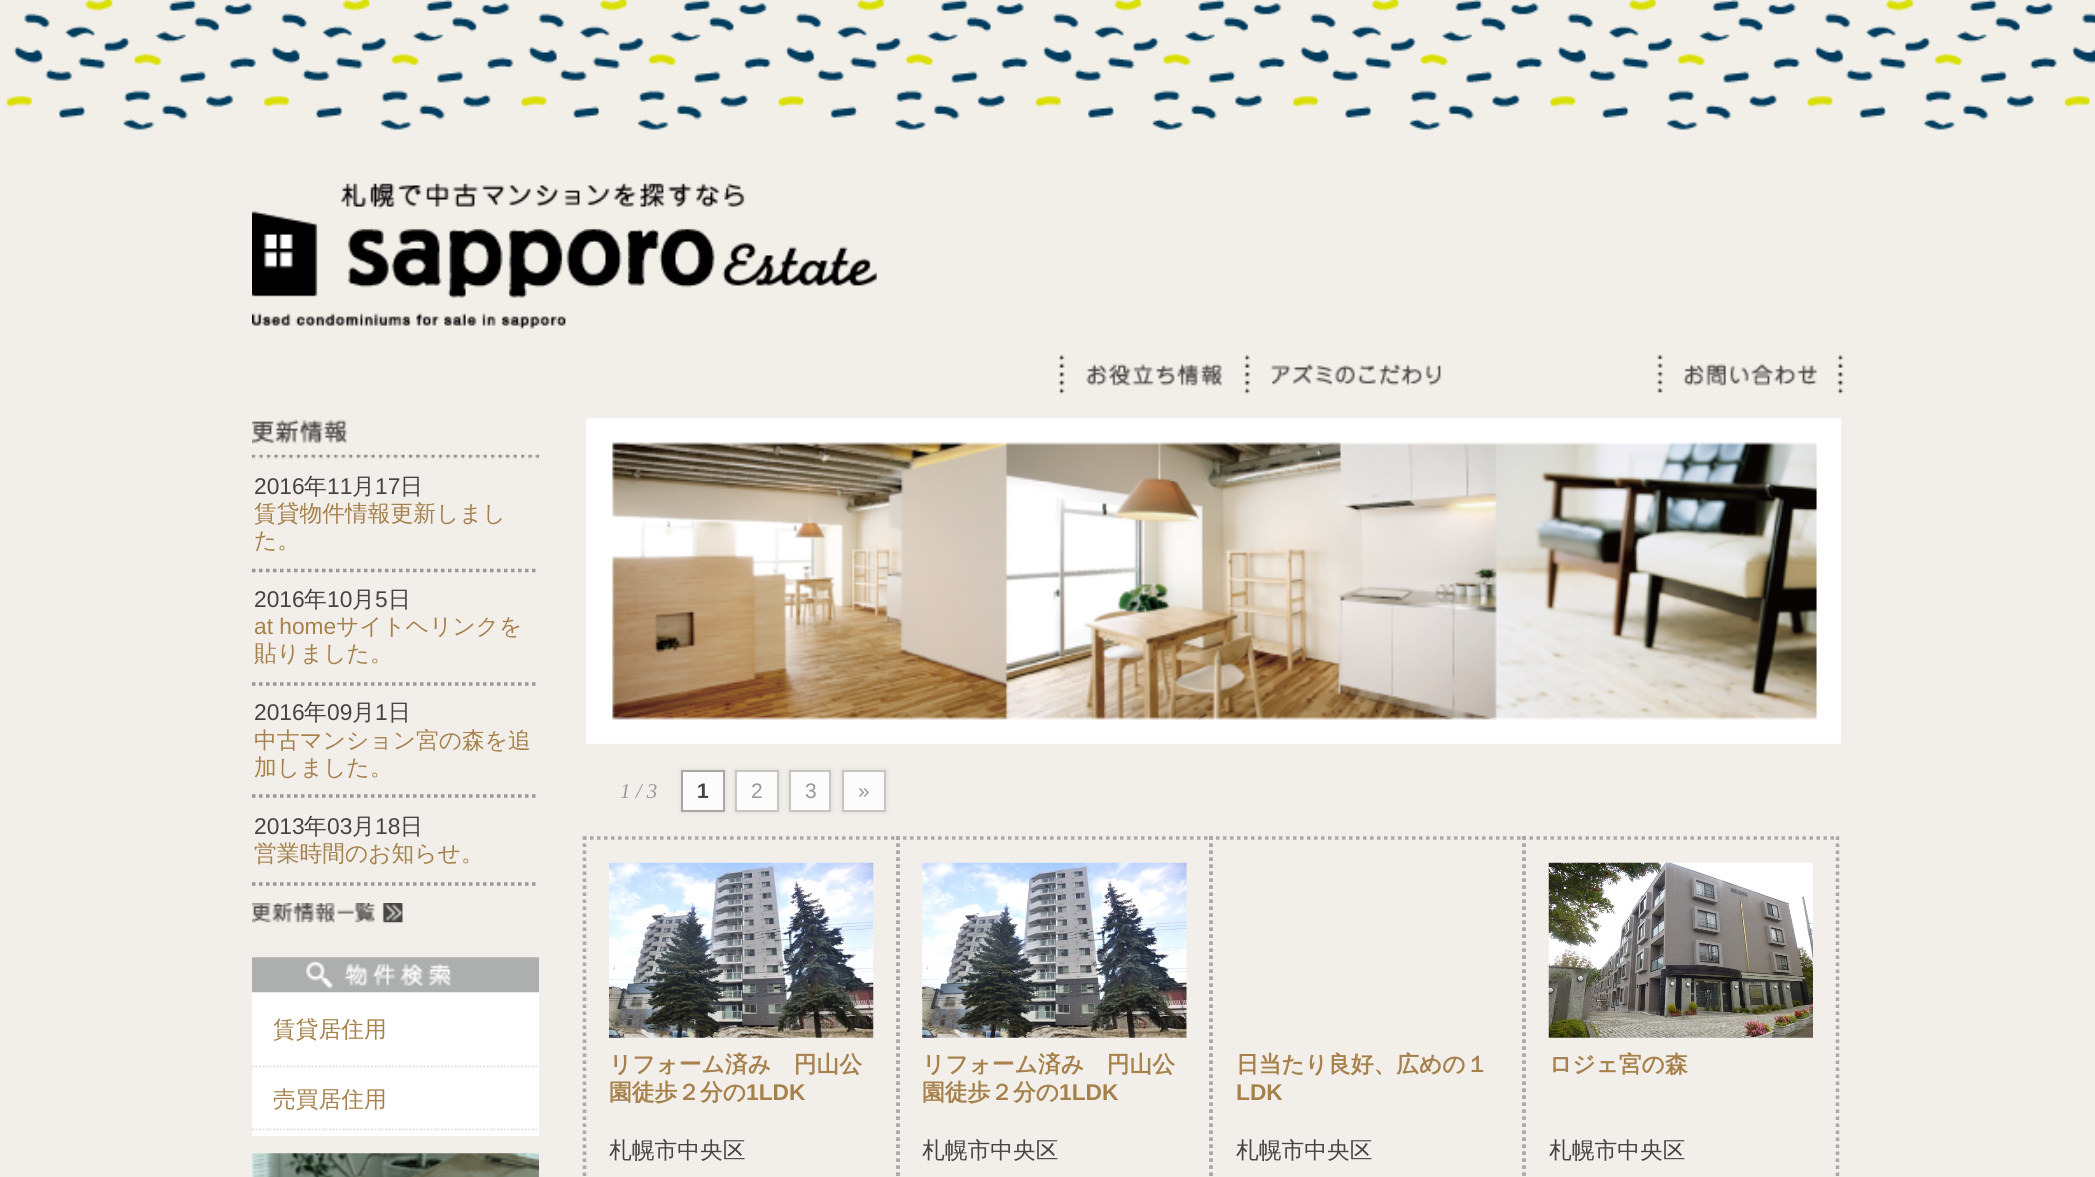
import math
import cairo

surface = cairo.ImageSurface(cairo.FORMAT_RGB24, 2095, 1177)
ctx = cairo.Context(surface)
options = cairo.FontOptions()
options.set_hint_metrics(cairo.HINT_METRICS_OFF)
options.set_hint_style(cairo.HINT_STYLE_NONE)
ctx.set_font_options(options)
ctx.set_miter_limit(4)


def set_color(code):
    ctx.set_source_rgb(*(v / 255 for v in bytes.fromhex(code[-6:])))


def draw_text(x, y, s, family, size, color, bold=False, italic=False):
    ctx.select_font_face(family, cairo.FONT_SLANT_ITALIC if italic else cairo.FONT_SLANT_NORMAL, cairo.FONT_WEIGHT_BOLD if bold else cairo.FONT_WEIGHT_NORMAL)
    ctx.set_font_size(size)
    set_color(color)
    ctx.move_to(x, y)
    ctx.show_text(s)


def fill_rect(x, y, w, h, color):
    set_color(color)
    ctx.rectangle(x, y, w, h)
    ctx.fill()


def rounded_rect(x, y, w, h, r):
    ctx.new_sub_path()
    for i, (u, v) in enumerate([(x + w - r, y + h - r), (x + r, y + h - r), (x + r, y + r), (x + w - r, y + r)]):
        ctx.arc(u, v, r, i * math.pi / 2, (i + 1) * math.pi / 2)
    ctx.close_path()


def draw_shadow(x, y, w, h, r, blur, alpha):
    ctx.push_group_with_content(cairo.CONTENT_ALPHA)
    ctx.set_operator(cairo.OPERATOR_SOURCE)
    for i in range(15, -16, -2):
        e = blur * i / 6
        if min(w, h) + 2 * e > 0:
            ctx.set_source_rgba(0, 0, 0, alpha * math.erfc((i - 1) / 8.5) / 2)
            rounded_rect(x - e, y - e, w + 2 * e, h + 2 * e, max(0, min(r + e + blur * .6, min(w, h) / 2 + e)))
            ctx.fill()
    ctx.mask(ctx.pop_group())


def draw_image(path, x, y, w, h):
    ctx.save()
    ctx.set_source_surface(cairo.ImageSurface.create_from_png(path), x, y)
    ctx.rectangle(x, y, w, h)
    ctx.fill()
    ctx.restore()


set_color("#f2efea")
ctx.paint()
draw_image("assets/img1.png", 6, 0, 2089, 130)
draw_image("assets/img2.png", 252, 183, 625, 146)
draw_image("assets/img3.png", 1058, 354, 164, 41)
draw_image("assets/img4.png", 1244, 354, 197, 41)
draw_image("assets/img5.png", 1656, 354, 188, 41)
draw_image("assets/img6.png", 252, 419, 287, 40)
ctx.new_path()
ctx.move_to(252, 570.5)
ctx.line_to(539, 570.5)
set_color("#999999")
ctx.set_line_width(3.5)
ctx.set_dash([3.5, 3.5])
ctx.stroke()
draw_text(254, 494, "2016", "Liberation Sans", 22.75, "#444444")
draw_text(304, 494, "年", "WenQuanYi Zen Hei Medium", 22.75, "#444444")
draw_text(327, 494, "11", "Liberation Sans", 22.75, "#444444")
draw_text(352, 494, "月", "WenQuanYi Zen Hei Medium", 22.75, "#444444")
draw_text(375, 494, "17", "Liberation Sans", 22.75, "#444444")
draw_text(400, 494, "日", "WenQuanYi Zen Hei Medium", 22.75, "#444444")
draw_text(254, 521, "賃貸物件情報更新しまし", "WenQuanYi Zen Hei Medium", 22.75, "#a6814c")
draw_text(254, 548, "た。", "WenQuanYi Zen Hei Medium", 22.75, "#a6814c")
ctx.new_path()
ctx.move_to(252, 684)
ctx.line_to(539, 684)
set_color("#999999")
ctx.stroke()
draw_text(254, 607, "2016", "Liberation Sans", 22.75, "#444444")
draw_text(304, 607, "年", "WenQuanYi Zen Hei Medium", 22.75, "#444444")
draw_text(327, 607, "10", "Liberation Sans", 22.75, "#444444")
draw_text(352, 607, "月", "WenQuanYi Zen Hei Medium", 22.75, "#444444")
draw_text(375, 607, "5", "Liberation Sans", 22.75, "#444444")
draw_text(388, 607, "日", "WenQuanYi Zen Hei Medium", 22.75, "#444444")
draw_text(254, 634, "at home", "Liberation Sans", 22.75, "#a6814c")
draw_text(336, 634, "サイトヘリンクを", "WenQuanYi Zen Hei Medium", 22.75, "#a6814c")
draw_text(254, 661, "貼りました。", "WenQuanYi Zen Hei Medium", 22.75, "#a6814c")
ctx.new_path()
ctx.move_to(252, 796)
ctx.line_to(539, 796)
set_color("#999999")
ctx.stroke()
draw_text(254, 720, "2016", "Liberation Sans", 22.75, "#444444")
draw_text(304, 720, "年", "WenQuanYi Zen Hei Medium", 22.75, "#444444")
draw_text(327, 720, "09", "Liberation Sans", 22.75, "#444444")
draw_text(352, 720, "月", "WenQuanYi Zen Hei Medium", 22.75, "#444444")
draw_text(375, 720, "1", "Liberation Sans", 22.75, "#444444")
draw_text(388, 720, "日", "WenQuanYi Zen Hei Medium", 22.75, "#444444")
draw_text(254, 748, "中古マンション宮の森を追", "WenQuanYi Zen Hei Medium", 22.75, "#a6814c")
draw_text(254, 775, "加しました。", "WenQuanYi Zen Hei Medium", 22.75, "#a6814c")
ctx.new_path()
ctx.move_to(252, 884)
ctx.line_to(539, 884)
set_color("#999999")
ctx.stroke()
draw_text(254, 834, "2013", "Liberation Sans", 22.75, "#444444")
draw_text(304, 834, "年", "WenQuanYi Zen Hei Medium", 22.75, "#444444")
draw_text(327, 834, "03", "Liberation Sans", 22.75, "#444444")
draw_text(352, 834, "月", "WenQuanYi Zen Hei Medium", 22.75, "#444444")
draw_text(375, 834, "18", "Liberation Sans", 22.75, "#444444")
draw_text(400, 834, "日", "WenQuanYi Zen Hei Medium", 22.75, "#444444")
draw_text(254, 861, "営業時間のお知らせ。", "WenQuanYi Zen Hei Medium", 22.75, "#a6814c")
draw_image("assets/img7.png", 252, 903, 151, 20)
fill_rect(252, 992, 287, 144, "#ffffff")
draw_image("assets/img8.png", 252, 957, 287, 36)
ctx.new_path()
ctx.move_to(252, 1066.5)
ctx.line_to(539, 1066.5)
set_color("#dddddd")
ctx.set_line_width(1.8)
ctx.set_dash([1.75, 1.75])
ctx.stroke()
draw_text(273, 1037, "賃貸居住用", "WenQuanYi Zen Hei Medium", 22.75, "#a6814c")
ctx.new_path()
ctx.move_to(252, 1129.5)
ctx.line_to(539, 1129.5)
set_color("#dddddd")
ctx.stroke()
draw_text(273, 1107, "売買居住用", "WenQuanYi Zen Hei Medium", 22.75, "#a6814c")
draw_image("assets/img9.png", 252, 1153, 287, 24)
draw_image("assets/img10.png", 586, 418, 1255, 326)
draw_text(620, 798, "1 / 3", "Liberation Serif", 21, "#999999", italic=True)
set_color("#000000")
draw_shadow(681, 770, 44, 42, 0, 2.5, 0.1)
set_color("#fcfcfc")
ctx.rectangle(682, 771, 42, 40)
ctx.fill_preserve()
set_color("#a7a7a3")
ctx.set_line_width(2)
ctx.set_dash([])
ctx.stroke()
draw_text(697, 798, "1", "Liberation Sans", 21, "#444444", bold=True)
set_color("#000000")
draw_shadow(735, 770, 44, 42, 0, 2.5, 0.1)
set_color("#fcfcfc")
ctx.rectangle(736, 771, 42, 40)
ctx.fill_preserve()
set_color("#c8c8c2")
ctx.stroke()
draw_text(751, 798, "2", "Liberation Sans", 21, "#999999")
set_color("#000000")
draw_shadow(789, 770, 42, 42, 0, 2.5, 0.1)
set_color("#fcfcfc")
ctx.rectangle(790, 771, 40, 40)
ctx.fill_preserve()
set_color("#c8c8c2")
ctx.stroke()
draw_text(805, 798, "3", "Liberation Sans", 21, "#999999")
set_color("#000000")
draw_shadow(842, 770, 44, 42, 0, 2.5, 0.1)
set_color("#fcfcfc")
ctx.rectangle(843, 771, 42, 40)
ctx.fill_preserve()
set_color("#c8c8c2")
ctx.stroke()
draw_text(858, 798, "»", "Liberation Sans", 21, "#999999")
ctx.new_path()
ctx.move_to(583, 838)
ctx.line_to(899.5, 838)
set_color("#aaaaaa")
ctx.set_line_width(3.5)
ctx.set_dash([3.5, 3.5])
ctx.stroke()
ctx.new_path()
ctx.move_to(898, 836.5)
ctx.line_to(898, 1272)
ctx.stroke()
ctx.new_path()
ctx.move_to(584.5, 836.5)
ctx.line_to(584.5, 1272)
ctx.stroke()
draw_image("assets/img11.png", 609, 862, 265, 176)
draw_text(609, 1072, "リフォーム済み　円山公", "WenQuanYi Zen Hei", 22.75, "#a6814c", bold=True)
draw_text(609, 1100, "園徒歩２分の", "WenQuanYi Zen Hei", 22.75, "#a6814c", bold=True)
draw_text(746, 1100, "1LDK", "Liberation Sans", 22.75, "#a6814c", bold=True)
draw_text(609, 1158, "札幌市中央区", "WenQuanYi Zen Hei Medium", 22.75, "#444444")
ctx.new_path()
ctx.move_to(896, 838)
ctx.line_to(1213, 838)
set_color("#aaaaaa")
ctx.stroke()
ctx.new_path()
ctx.move_to(1211, 836.5)
ctx.line_to(1211, 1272)
ctx.stroke()
ctx.new_path()
ctx.move_to(898, 836.5)
ctx.line_to(898, 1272)
ctx.stroke()
draw_image("assets/img12.png", 922, 862, 265, 176)
draw_text(922, 1072, "リフォーム済み　円山公", "WenQuanYi Zen Hei", 22.75, "#a6814c", bold=True)
draw_text(922, 1100, "園徒歩２分の", "WenQuanYi Zen Hei", 22.75, "#a6814c", bold=True)
draw_text(1059, 1100, "1LDK", "Liberation Sans", 22.75, "#a6814c", bold=True)
draw_text(922, 1158, "札幌市中央区", "WenQuanYi Zen Hei Medium", 22.75, "#444444")
ctx.new_path()
ctx.move_to(1209, 838)
ctx.line_to(1526, 838)
set_color("#aaaaaa")
ctx.stroke()
ctx.new_path()
ctx.move_to(1524, 836.5)
ctx.line_to(1524, 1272)
ctx.stroke()
ctx.new_path()
ctx.move_to(1211, 836.5)
ctx.line_to(1211, 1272)
ctx.stroke()
draw_text(1236, 1072, "日当たり良好、広めの１", "WenQuanYi Zen Hei", 22.75, "#a6814c", bold=True)
draw_text(1236, 1100, "LDK", "Liberation Sans", 22.75, "#a6814c", bold=True)
draw_text(1236, 1158, "札幌市中央区", "WenQuanYi Zen Hei Medium", 22.75, "#444444")
ctx.new_path()
ctx.move_to(1522.5, 838)
ctx.line_to(1839, 838)
set_color("#aaaaaa")
ctx.stroke()
ctx.new_path()
ctx.move_to(1837.5, 836.5)
ctx.line_to(1837.5, 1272)
ctx.stroke()
ctx.new_path()
ctx.move_to(1524, 836.5)
ctx.line_to(1524, 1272)
ctx.stroke()
draw_image("assets/img13.png", 1548, 862, 265, 176)
draw_text(1549, 1072, "ロジェ宮の森", "WenQuanYi Zen Hei", 22.75, "#a6814c", bold=True)
draw_text(1549, 1158, "札幌市中央区", "WenQuanYi Zen Hei Medium", 22.75, "#444444")
surface.write_to_png("output.png")
